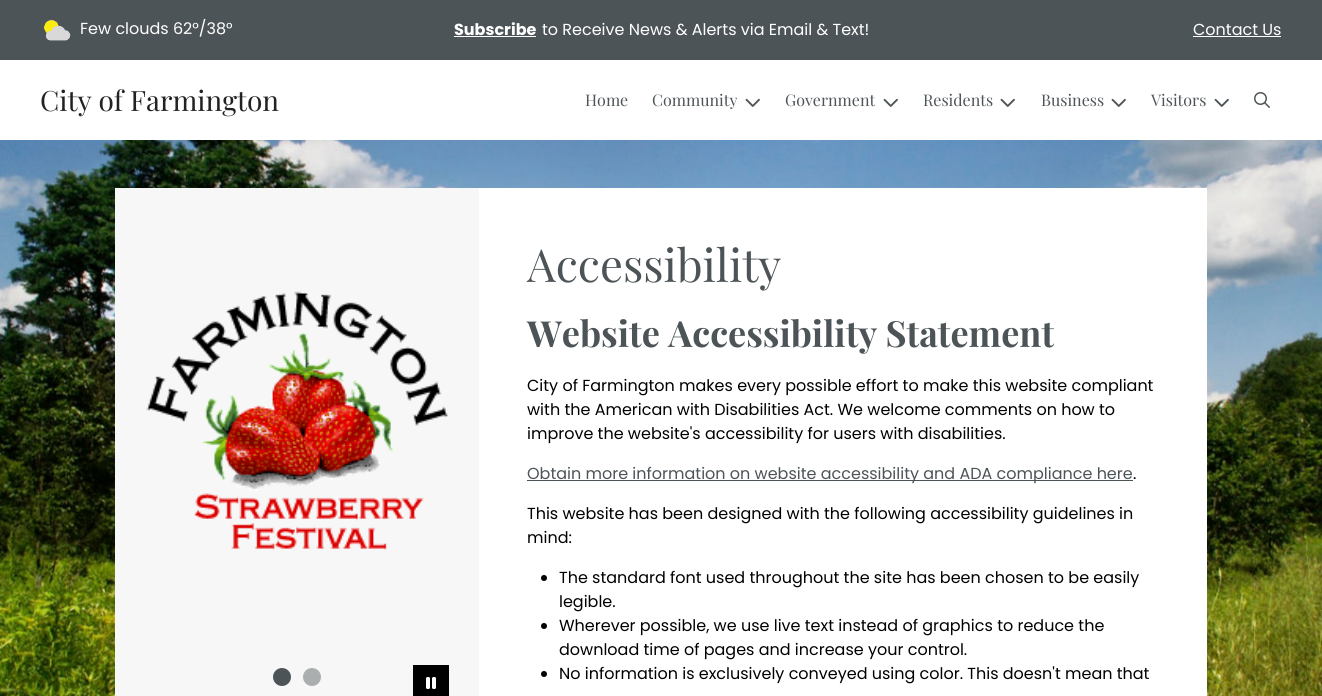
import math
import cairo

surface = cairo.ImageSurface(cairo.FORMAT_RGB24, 1322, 696)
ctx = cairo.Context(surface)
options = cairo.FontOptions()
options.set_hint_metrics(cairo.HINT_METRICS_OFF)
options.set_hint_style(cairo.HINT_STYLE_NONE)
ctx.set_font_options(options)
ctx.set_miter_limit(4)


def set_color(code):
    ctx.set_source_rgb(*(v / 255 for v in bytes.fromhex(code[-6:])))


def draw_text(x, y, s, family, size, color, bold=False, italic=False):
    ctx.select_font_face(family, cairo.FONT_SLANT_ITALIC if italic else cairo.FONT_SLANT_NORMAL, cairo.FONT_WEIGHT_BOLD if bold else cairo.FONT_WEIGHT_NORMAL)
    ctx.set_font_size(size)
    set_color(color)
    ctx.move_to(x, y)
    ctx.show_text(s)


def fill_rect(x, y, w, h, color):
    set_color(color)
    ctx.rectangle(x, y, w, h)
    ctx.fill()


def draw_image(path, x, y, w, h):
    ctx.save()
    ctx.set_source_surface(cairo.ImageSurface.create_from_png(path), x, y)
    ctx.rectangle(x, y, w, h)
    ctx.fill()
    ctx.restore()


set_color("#ffffff")
ctx.paint()
draw_image("assets/img1.png", 0, 140, 1322, 556)
fill_rect(0, 0, 1322, 60, "#4d5457")
draw_image("assets/img2.png", 44, 20, 27, 21)
draw_text(80, 34, "Few clouds 62°/38°", "Poppins", 16, "#ffffff")
draw_text(454, 35, "Subscribe", "Poppins", 16, "#ffffff", bold=True)
fill_rect(454, 36, 82, 1, "#ffffff")
draw_text(542, 35, "to Receive News & Alerts via Email & Text!", "Poppins", 16, "#ffffff")
draw_text(1193, 35, "Contact Us", "Poppins", 16, "#ffffff")
fill_rect(1193, 36, 88, 1, "#ffffff")
draw_text(40, 111, "City of Farmington", "Playfair Display", 28, "#222222")
draw_text(585, 106, "Home", "Playfair Display", 16, "#4d5457")
draw_text(652, 106, "Community", "Playfair Display", 16, "#4d5457")
draw_image("assets/img3.png", 745, 98, 15, 9)
draw_text(785, 106, "Government", "Playfair Display", 16, "#4d5457")
draw_image("assets/img3.png", 883, 98, 15, 9)
draw_text(923, 106, "Residents", "Playfair Display", 16, "#4d5457")
draw_image("assets/img3.png", 1000, 98, 15, 9)
draw_text(1041, 106, "Business", "Playfair Display", 16, "#4d5457")
draw_image("assets/img3.png", 1111, 98, 15, 9)
draw_text(1151, 106, "Visitors", "Playfair Display", 16, "#4d5457")
draw_image("assets/img3.png", 1214, 98, 15, 9)
draw_image("assets/img4.png", 1254, 92, 16, 16)
fill_rect(115, 188, 364, 508, "#f7f7f7")
draw_image("assets/img5.png", 146, 291, 302, 260)
set_color("#4d5457")
ctx.arc(282, 677, 9, 0, 2 * math.pi)
ctx.fill()
set_color("#abaeaf")
ctx.arc(312, 677, 9, 0, 2 * math.pi)
ctx.fill()
fill_rect(413, 665, 36, 31, "#000000")
draw_image("assets/img6.png", 426, 677, 10, 12)
fill_rect(479, 188, 728, 508, "#ffffff")
draw_text(527, 282, "Accessibility", "Playfair Display", 45.5, "#4d5457")
draw_text(527, 347, "Website Accessibility Statement", "Playfair Display", 36, "#4d5457", bold=True)
draw_text(527, 391, "City of Farmington makes every possible effort to make this website compliant", "Poppins", 16, "#000000")
draw_text(527, 415, "with the American with Disabilities Act. We welcome comments on how to", "Poppins", 16, "#000000")
draw_text(527, 439, "improve the website's accessibility for users with disabilities.", "Poppins", 16, "#000000")
fill_rect(527, 480, 606, 1, "#4d5457")
draw_text(527, 479, "Obtain more information on website accessibility and ADA compliance here", "Poppins", 16, "#4d5457")
draw_text(1133, 479, ".", "Poppins", 16, "#000000")
draw_text(527, 519, "This website has been designed with the following accessibility guidelines in", "Poppins", 16, "#000000")
draw_text(527, 543, "mind:", "Poppins", 16, "#000000")
ctx.new_path()
ctx.arc(544, 578, 3, 0, 2 * math.pi)
ctx.fill()
draw_text(559, 583, "The standard font used throughout the site has been chosen to be easily", "Poppins", 16, "#000000")
draw_text(559, 607, "legible.", "Poppins", 16, "#000000")
ctx.new_path()
ctx.arc(544, 626, 3, 0, 2 * math.pi)
ctx.fill()
draw_text(559, 631, "Wherever possible, we use live text instead of graphics to reduce the", "Poppins", 16, "#000000")
draw_text(559, 655, "download time of pages and increase your control.", "Poppins", 16, "#000000")
ctx.new_path()
ctx.arc(544, 674, 3, 0, 2 * math.pi)
ctx.fill()
draw_text(559, 679, "No information is exclusively conveyed using color. This doesn't mean that", "Poppins", 16, "#000000")
surface.write_to_png("output.png")
